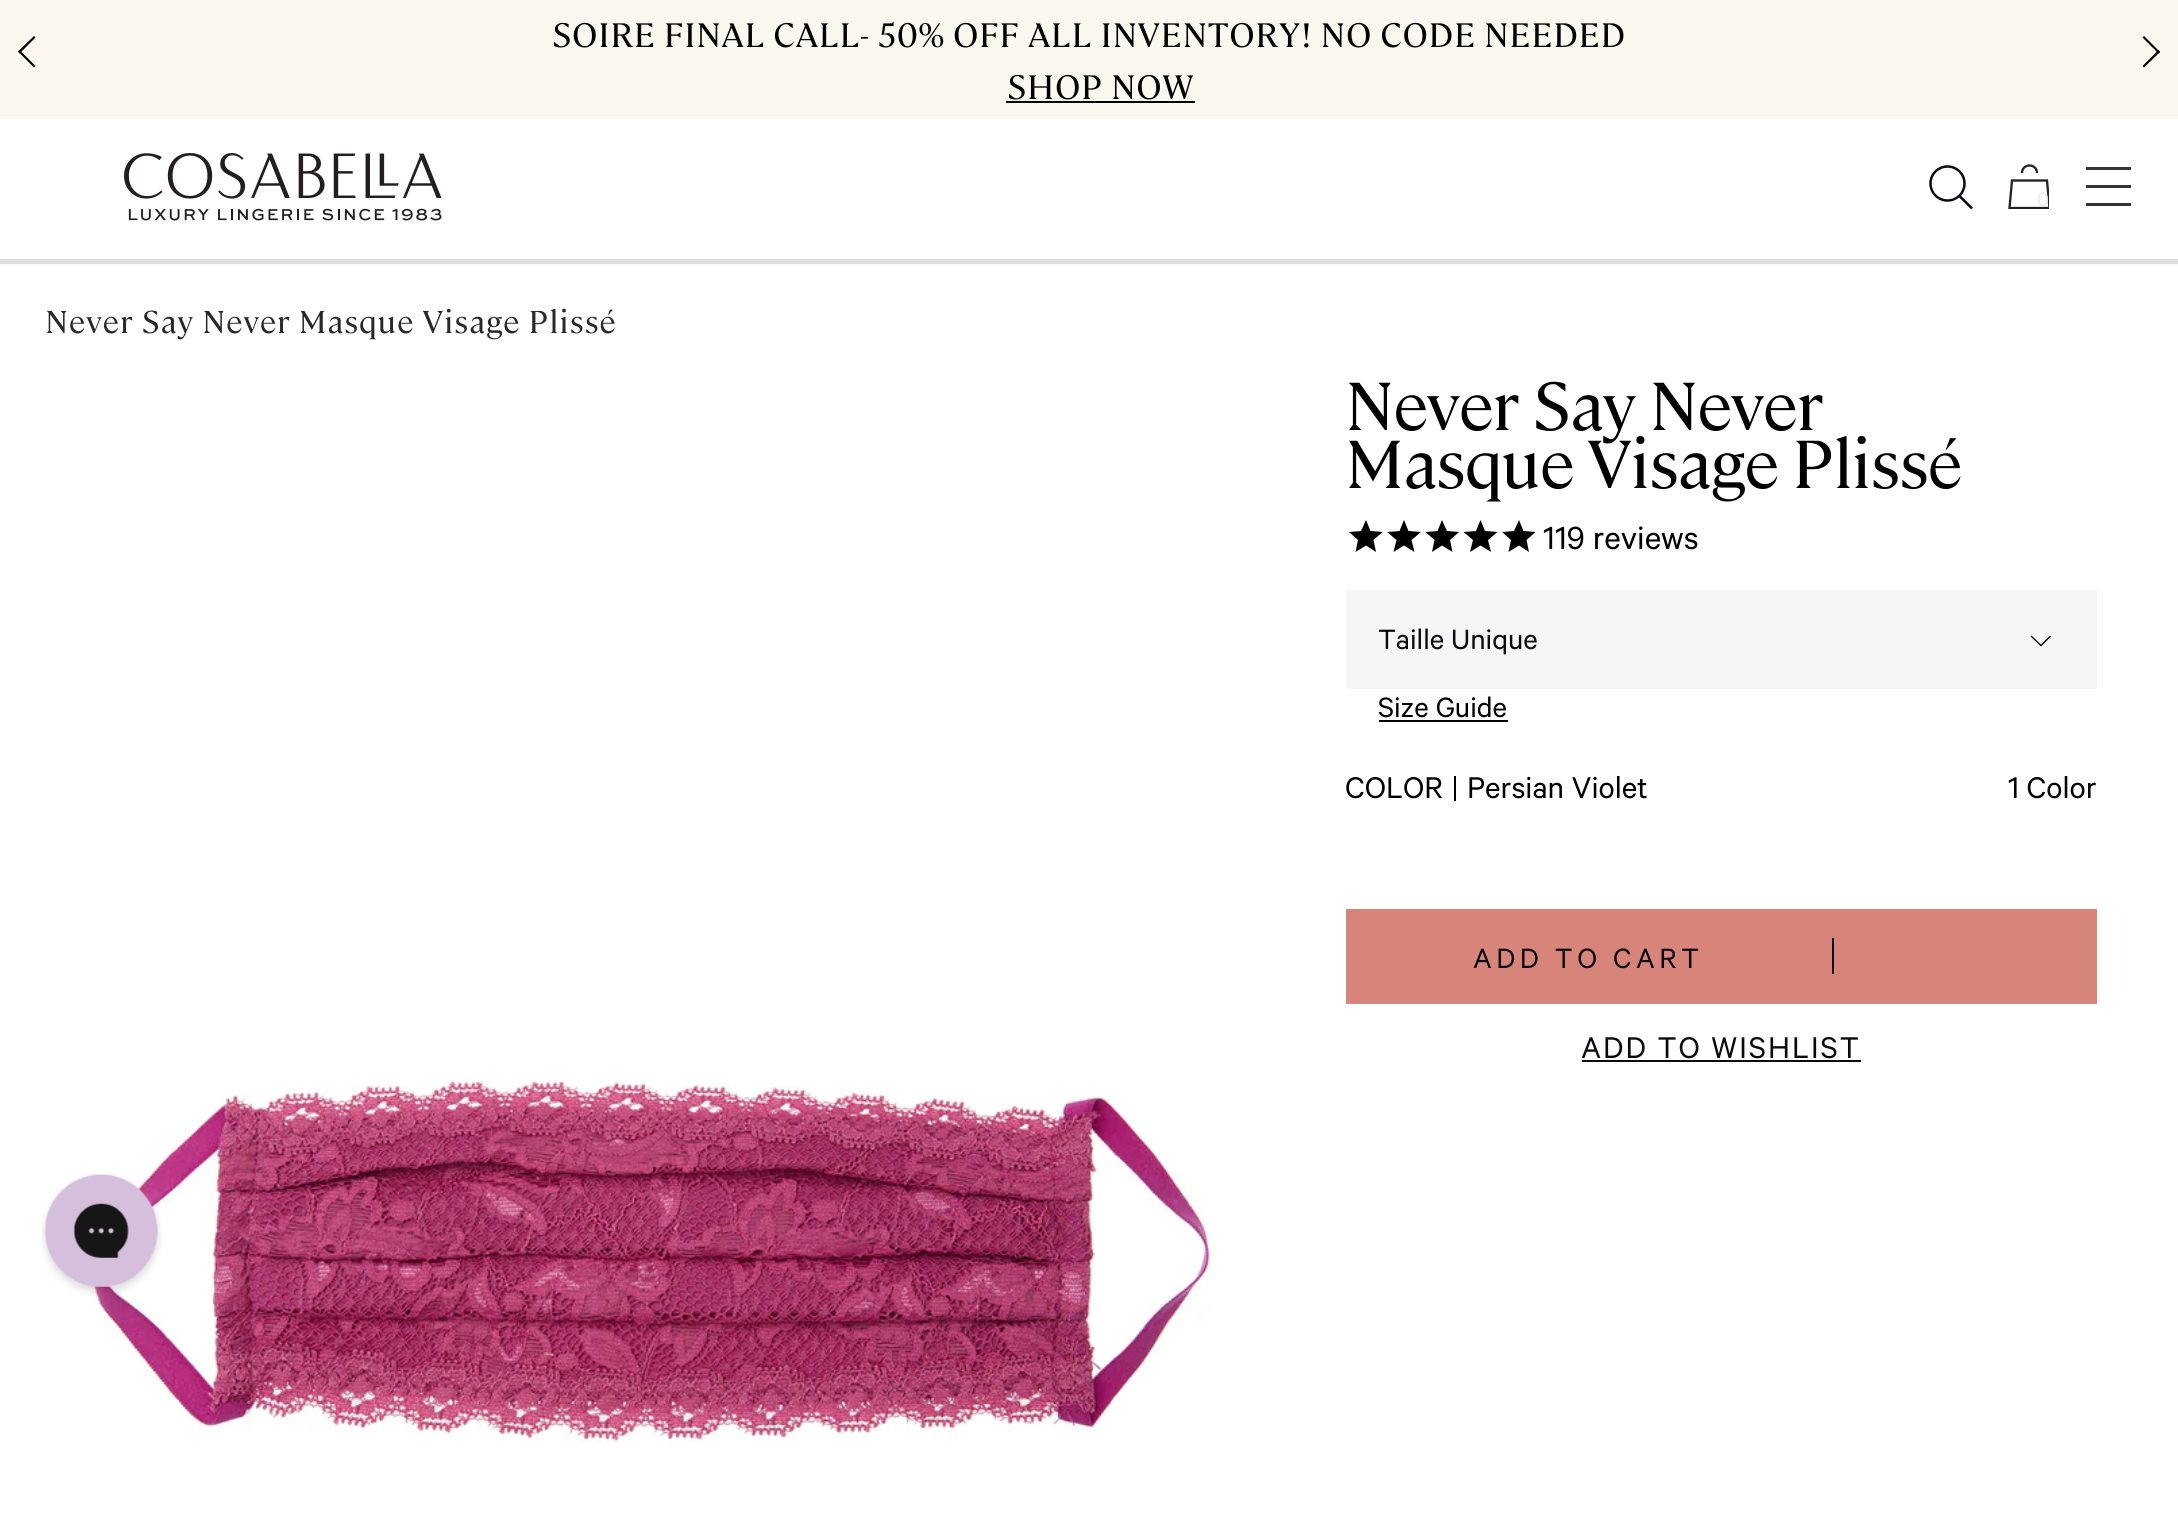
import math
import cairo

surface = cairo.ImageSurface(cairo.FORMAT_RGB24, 2178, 1515)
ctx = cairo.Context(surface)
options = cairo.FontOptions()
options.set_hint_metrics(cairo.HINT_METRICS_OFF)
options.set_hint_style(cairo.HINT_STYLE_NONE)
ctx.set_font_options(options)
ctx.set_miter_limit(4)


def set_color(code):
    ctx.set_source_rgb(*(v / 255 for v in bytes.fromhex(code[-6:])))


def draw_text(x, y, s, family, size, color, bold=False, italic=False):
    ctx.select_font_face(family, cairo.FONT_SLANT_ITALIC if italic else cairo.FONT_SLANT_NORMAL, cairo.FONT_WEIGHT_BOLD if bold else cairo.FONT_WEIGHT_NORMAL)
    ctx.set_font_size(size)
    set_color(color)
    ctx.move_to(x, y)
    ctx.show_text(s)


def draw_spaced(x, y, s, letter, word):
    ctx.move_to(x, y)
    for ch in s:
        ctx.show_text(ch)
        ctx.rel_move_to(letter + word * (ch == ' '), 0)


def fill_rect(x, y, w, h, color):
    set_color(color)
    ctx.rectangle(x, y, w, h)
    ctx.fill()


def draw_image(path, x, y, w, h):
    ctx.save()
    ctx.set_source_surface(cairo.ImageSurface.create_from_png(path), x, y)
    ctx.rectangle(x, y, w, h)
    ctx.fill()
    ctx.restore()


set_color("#ffffff")
ctx.paint()
fill_rect(0, 264, 2178, 1, "#f7f7f7")
fill_rect(0, 0, 2178, 119, "#fbf8f0")
set_color("#000000")
ctx.new_path()
ctx.move_to(35.5, 66)
ctx.line_to(34, 67.5)
ctx.line_to(18, 51.5)
ctx.line_to(19.5, 50)
ctx.close_path()
ctx.fill()
ctx.new_path()
ctx.move_to(35.5, 37.5)
ctx.line_to(19.5, 53.5)
ctx.line_to(18, 51.5)
ctx.line_to(34, 36)
ctx.close_path()
ctx.fill()
ctx.select_font_face("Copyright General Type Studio")
ctx.set_font_size(33.75)
draw_spaced(552, 47, "SOIRE FINAL CALL- 50% OFF ALL INVENTORY! NO CODE NEEDED", 0.63, 0)
draw_spaced(1007, 99, "SHOP NOW", 0.63, 0)
fill_rect(1006, 101, 189, 2, "#000000")
ctx.new_path()
ctx.move_to(2142.5, 37.5)
ctx.line_to(2144, 36)
ctx.line_to(2160, 52)
ctx.line_to(2158.5, 53.5)
ctx.close_path()
ctx.fill()
ctx.new_path()
ctx.move_to(2142.5, 66)
ctx.line_to(2158.5, 50)
ctx.line_to(2160, 52)
ctx.line_to(2144, 67.5)
ctx.close_path()
ctx.fill()
draw_image("assets/img1.png", 124, 153, 318, 68)
ctx.arc(1947.5, 183.5, 17, 0, 2 * math.pi)
set_color("#0a0a12")
ctx.set_line_width(2.5)
ctx.stroke()
ctx.new_path()
ctx.move_to(1958.5, 195)
ctx.line_to(1972, 208.5)
ctx.stroke()
ctx.new_path()
ctx.move_to(2037, 173)
ctx.curve_to(2037, 163, 2022, 163, 2022, 173)
set_color("#222222")
ctx.set_line_width(2.3)
ctx.stroke()
ctx.save()
ctx.rectangle(2008, 164, 41, 45)
ctx.clip()
ctx.new_path()
ctx.move_to(2012, 180.5)
ctx.line_to(2047, 180.5)
ctx.line_to(2049.5, 208)
ctx.line_to(2009.5, 208)
ctx.close_path()
ctx.stroke()
ctx.restore()
draw_text(2037, 206, "0", "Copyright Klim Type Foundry", 22, "#ebebeb")
fill_rect(2086, 167, 45, 3, "#33333a")
fill_rect(2086, 185, 45, 3, "#33333a")
fill_rect(2086, 203, 45, 3, "#33333a")
fill_rect(0, 259, 2178, 5, "#dedede")
ctx.select_font_face("Copyright General Type Studio")
ctx.set_font_size(31.5)
set_color("#282828")
draw_spaced(45, 333, "Never Say Never Masque Visage Plissé", 1.1, 0)
ctx.set_font_size(67.5)
set_color("#000000")
draw_spaced(1345, 430, "Never Say Never", -0.9, 0)
draw_spaced(1345, 488, "Masque Visage Plissé", -0.9, 0)
ctx.new_path()
ctx.move_to(1366, 545.5)
ctx.line_to(1355.5, 552)
ctx.line_to(1358, 540)
ctx.line_to(1349, 532)
ctx.line_to(1361, 531)
ctx.line_to(1366, 520)
ctx.line_to(1370.5, 531)
ctx.line_to(1382.5, 532)
ctx.line_to(1373.5, 540)
ctx.line_to(1376, 552)
ctx.close_path()
ctx.fill()
ctx.new_path()
ctx.move_to(1404, 545.5)
ctx.line_to(1393.5, 552)
ctx.line_to(1396.5, 540)
ctx.line_to(1387, 532)
ctx.line_to(1399.5, 531)
ctx.line_to(1404, 520)
ctx.line_to(1408.5, 531)
ctx.line_to(1421, 532)
ctx.line_to(1411.5, 540)
ctx.line_to(1414.5, 552)
ctx.close_path()
ctx.fill()
ctx.new_path()
ctx.move_to(1442, 545.5)
ctx.line_to(1432, 552)
ctx.line_to(1434.5, 540)
ctx.line_to(1425.5, 532)
ctx.line_to(1437.5, 531)
ctx.line_to(1442, 520)
ctx.line_to(1447, 531)
ctx.line_to(1459, 532)
ctx.line_to(1450, 540)
ctx.line_to(1452.5, 552)
ctx.close_path()
ctx.fill()
ctx.new_path()
ctx.move_to(1480.5, 545.5)
ctx.line_to(1470, 552)
ctx.line_to(1473, 540)
ctx.line_to(1463.5, 532)
ctx.line_to(1476, 531)
ctx.line_to(1480.5, 520)
ctx.line_to(1485, 531)
ctx.line_to(1497.5, 532)
ctx.line_to(1488, 540)
ctx.line_to(1491, 552)
ctx.close_path()
ctx.fill()
ctx.new_path()
ctx.move_to(1519, 545.5)
ctx.line_to(1508.5, 552)
ctx.line_to(1511, 540)
ctx.line_to(1502, 532)
ctx.line_to(1514, 531)
ctx.line_to(1519, 520)
ctx.line_to(1523.5, 531)
ctx.line_to(1535.5, 532)
ctx.line_to(1526.5, 540)
ctx.line_to(1529, 552)
ctx.close_path()
ctx.fill()
draw_text(1543, 549, "119 reviews", "Copyright Klim Type Foundry", 36, "#000000")
fill_rect(1346, 590, 751, 99, "#f6f6f6")
draw_text(1378, 649, "Taille Unique", "Copyright Klim Type Foundry", 31.5, "#0a0a12")
ctx.new_path()
ctx.move_to(2031, 636)
ctx.line_to(2041, 645.5)
ctx.line_to(2050.5, 636)
set_color("#000000")
ctx.set_line_width(1.4)
ctx.stroke()
draw_text(1378, 717, "Size Guide", "Copyright Klim Type Foundry", 31.5, "#000000")
fill_rect(1379, 720, 129, 2, "#000000")
fill_rect(1454, 776, 2, 25, "#000000")
draw_text(1345, 798, "COLOR", "Copyright Klim Type Foundry", 33.75, "#000000")
draw_text(1467, 798, "Persian Violet", "Copyright Klim Type Foundry", 33.75, "#000000")
draw_text(2008, 798, "1 Color", "Copyright Klim Type Foundry", 33.75, "#000000")
fill_rect(1346, 909, 751, 95, "#d7857a")
fill_rect(1832, 938, 2, 36, "#0a0a12")
ctx.set_font_size(31.5)
draw_spaced(1473, 968, "ADD TO CART", 4.5, 0)
ctx.set_font_size(33.75)
draw_spaced(1581, 1058, "ADD TO WISHLIST", 2, 0)
fill_rect(1582, 1060, 279, 2, "#0a0a12")
draw_image("assets/img2.png", 89, 1076, 1124, 367)
draw_image("assets/img3.png", 41, 1174, 121, 122)
surface.write_to_png("output.png")
